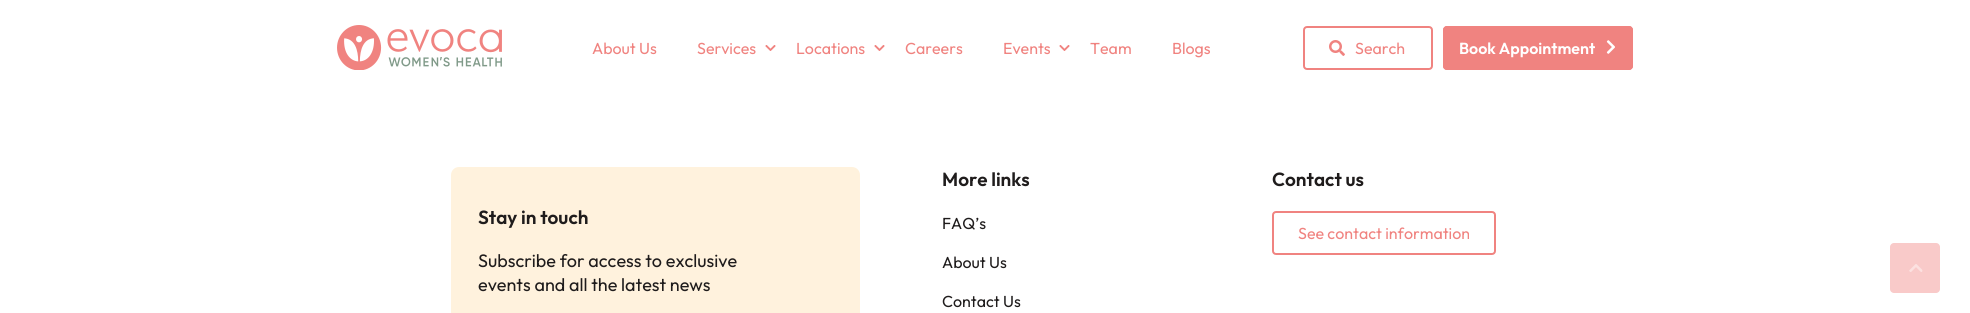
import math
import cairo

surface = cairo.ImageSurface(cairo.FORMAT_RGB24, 1970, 313)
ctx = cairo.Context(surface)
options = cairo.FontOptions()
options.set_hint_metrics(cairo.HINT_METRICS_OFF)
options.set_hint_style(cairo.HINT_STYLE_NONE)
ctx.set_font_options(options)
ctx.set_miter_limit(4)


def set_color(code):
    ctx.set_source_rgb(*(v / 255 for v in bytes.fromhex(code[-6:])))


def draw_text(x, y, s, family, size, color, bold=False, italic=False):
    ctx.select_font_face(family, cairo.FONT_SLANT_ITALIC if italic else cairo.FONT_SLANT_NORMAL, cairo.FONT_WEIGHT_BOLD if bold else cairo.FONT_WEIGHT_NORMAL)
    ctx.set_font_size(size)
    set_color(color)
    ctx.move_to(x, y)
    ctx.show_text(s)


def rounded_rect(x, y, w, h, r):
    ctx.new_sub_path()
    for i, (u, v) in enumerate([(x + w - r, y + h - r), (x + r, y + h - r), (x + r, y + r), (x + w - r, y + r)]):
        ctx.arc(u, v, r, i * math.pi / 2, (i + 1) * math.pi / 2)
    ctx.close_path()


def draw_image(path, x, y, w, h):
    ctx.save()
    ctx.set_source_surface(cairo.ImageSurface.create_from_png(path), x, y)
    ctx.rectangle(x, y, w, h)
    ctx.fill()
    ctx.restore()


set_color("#ffffff")
ctx.paint()
draw_image("assets/img1.png", 337, 25, 165, 45)
draw_text(592, 54, "About Us", "Outfit", 16, "#f08380")
draw_image("assets/img2.png", 765, 45, 11, 6)
draw_text(697, 54, "Services", "Outfit", 16, "#f08380")
draw_image("assets/img2.png", 874, 45, 11, 6)
draw_text(796, 54, "Locations", "Outfit", 16, "#f08380")
draw_text(905, 54, "Careers", "Outfit", 16, "#f08380")
draw_image("assets/img2.png", 1059, 45, 11, 6)
draw_text(1003, 54, "Events", "Outfit", 16, "#f08380")
draw_text(1090, 54, "Team", "Outfit", 16, "#f08380")
draw_text(1172, 54, "Blogs", "Outfit", 16, "#f08380")
rounded_rect(1304, 27, 128, 42, 3)
ctx.stroke()
draw_image("assets/img3.png", 1329, 40, 16, 16)
draw_text(1355, 54, "Search", "Outfit", 16, "#f08380")
rounded_rect(1443, 26, 190, 44, 4)
ctx.fill()
draw_image("assets/img4.png", 1606, 40, 9, 14)
rounded_rect(1444, 27, 188, 42, 3)
ctx.stroke()
draw_text(1459, 54, "Book Appointment", "Outfit SemiBold", 16, "#ffffff")
set_color("#fff2dd")
rounded_rect(451, 167, 409, 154, 8)
ctx.fill()
draw_text(478, 224, "Stay in touch", "Outfit SemiBold", 19, "#1f1c1c")
draw_text(478, 267, "Subscribe for access to exclusive", "Outfit", 18, "#1f1c1c")
draw_text(478, 291, "events and all the latest news", "Outfit", 18, "#1f1c1c")
draw_text(942, 186, "More links", "Outfit SemiBold", 19, "#1f1c1c")
draw_text(942, 229, "FAQ’s", "Outfit", 16, "#1f1c1c")
draw_text(942, 268, "About Us", "Outfit", 16, "#1f1c1c")
draw_text(942, 307, "Contact Us", "Outfit", 16, "#1f1c1c")
draw_text(1272, 186, "Contact us", "Outfit SemiBold", 19, "#1f1c1c")
rounded_rect(1273, 212, 222, 42, 3)
set_color("#f08380")
ctx.stroke()
draw_text(1298, 239, "See contact information", "Outfit", 16, "#f08380")
set_color("#f9cac9")
rounded_rect(1890, 243, 50, 50, 4)
ctx.fill()
draw_image("assets/img5.png", 1909, 264, 14, 8)
surface.write_to_png("output.png")
